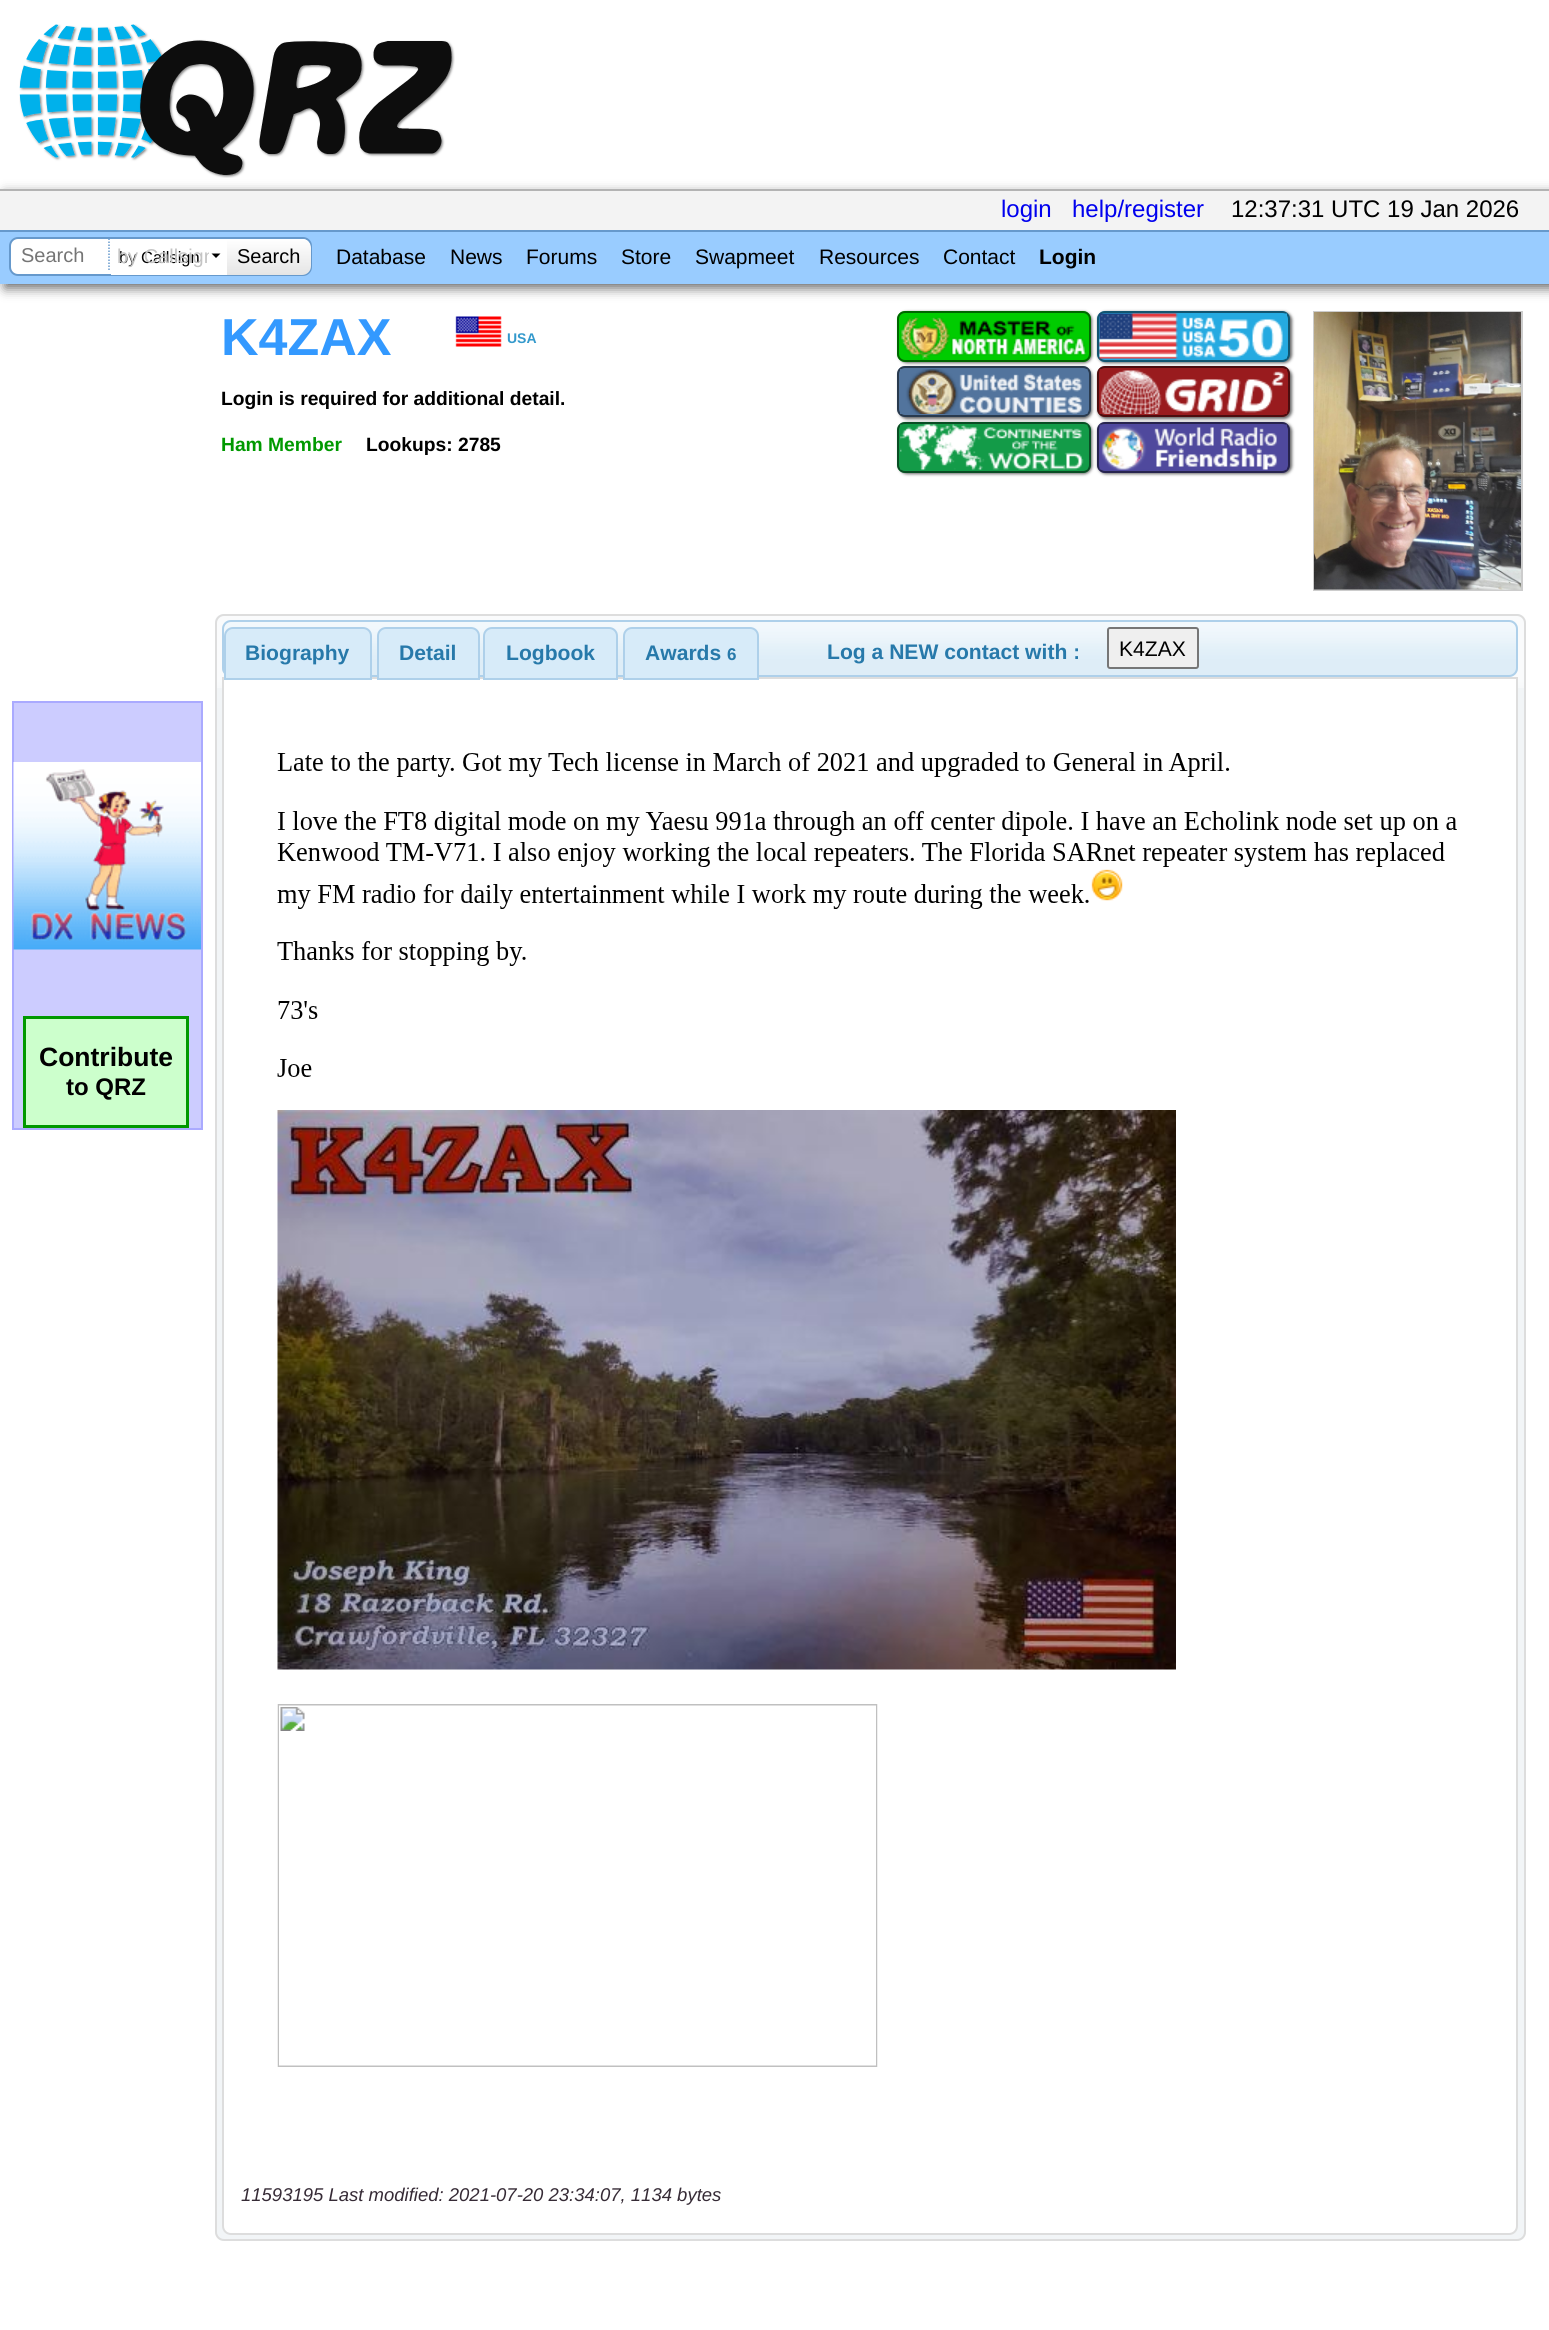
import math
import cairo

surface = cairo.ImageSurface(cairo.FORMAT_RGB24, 1549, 2330)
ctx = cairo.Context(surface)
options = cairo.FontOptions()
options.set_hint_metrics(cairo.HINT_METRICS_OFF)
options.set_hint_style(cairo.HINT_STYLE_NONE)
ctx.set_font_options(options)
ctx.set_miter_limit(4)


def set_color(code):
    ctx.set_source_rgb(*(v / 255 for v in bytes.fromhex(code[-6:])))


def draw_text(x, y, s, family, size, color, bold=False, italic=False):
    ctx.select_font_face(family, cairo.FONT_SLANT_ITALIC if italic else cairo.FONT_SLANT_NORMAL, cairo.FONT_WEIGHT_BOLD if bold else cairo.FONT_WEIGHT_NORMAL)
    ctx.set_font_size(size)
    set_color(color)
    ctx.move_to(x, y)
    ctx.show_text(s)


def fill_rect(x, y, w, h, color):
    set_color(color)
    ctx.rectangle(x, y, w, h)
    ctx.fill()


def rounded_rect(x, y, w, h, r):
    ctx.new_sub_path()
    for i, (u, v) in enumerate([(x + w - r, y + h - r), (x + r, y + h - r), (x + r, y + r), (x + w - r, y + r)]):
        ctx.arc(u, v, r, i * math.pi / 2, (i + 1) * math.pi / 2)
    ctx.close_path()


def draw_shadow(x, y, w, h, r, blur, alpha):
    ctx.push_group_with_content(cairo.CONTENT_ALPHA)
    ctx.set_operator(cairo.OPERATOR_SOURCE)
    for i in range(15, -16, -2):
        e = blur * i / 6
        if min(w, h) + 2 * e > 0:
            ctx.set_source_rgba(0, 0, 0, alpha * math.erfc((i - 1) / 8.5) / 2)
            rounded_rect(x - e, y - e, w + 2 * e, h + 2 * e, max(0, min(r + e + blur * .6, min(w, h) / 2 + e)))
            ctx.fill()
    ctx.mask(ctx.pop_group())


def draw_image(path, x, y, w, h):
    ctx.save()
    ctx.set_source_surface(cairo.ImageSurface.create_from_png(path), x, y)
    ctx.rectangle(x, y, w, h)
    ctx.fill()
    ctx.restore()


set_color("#ffffff")
ctx.paint()
set_color("#666666")
draw_shadow(5, 194, 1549, 94, 0, 6, 1)
draw_image("assets/img1.png", 19, 24, 436, 154)
fill_rect(0, 191, 1549, 39, "#f3f3f3")
fill_rect(0, 189, 1549, 2, "#b3b3b3")
draw_text(1001, 217, "login", "Liberation Sans", 24, "#0000ee")
draw_text(1072, 217, "help/register", "Liberation Sans", 24, "#0000ee")
draw_text(1231, 217, "12:37:31 UTC 19 Jan 2026", "Liberation Sans", 24, "#000000")
fill_rect(0, 232, 1549, 52, "#99ccff")
fill_rect(0, 230, 1549, 2, "#6699cc")
set_color("#ffffff")
rounded_rect(10, 238, 301, 37, 8)
ctx.fill_preserve()
set_color("#6699cc")
ctx.stroke()
ctx.new_path()
ctx.move_to(109, 238.5)
ctx.line_to(109, 271.5)
ctx.set_line_width(1.5)
ctx.set_dash([1.5, 1.5])
ctx.stroke()
draw_text(21, 262, "Search", "Liberation Sans", 20, "#757575")
draw_text(119, 263, "by Callsign", "Liberation Sans", 16.5, "#000000")
ctx.save()
ctx.rectangle(117, 245, 92, 25)
ctx.clip()
draw_text(117, 263, "by Callsign", "Liberation Sans", 20, "#c4c4c4")
ctx.restore()
fill_rect(111, 274, 116, 1, "#ffffff")
set_color("#000000")
ctx.new_path()
ctx.move_to(211.5, 253.5)
ctx.line_to(220.5, 253.5)
ctx.line_to(216, 258)
ctx.close_path()
ctx.fill()
gradient = cairo.LinearGradient(269, 239, 269, 275)
gradient.add_color_stop_rgba(0, 1, 1, 1, 1)
gradient.add_color_stop_rgba(1, 0.898, 0.898, 0.898, 1)
ctx.set_source(gradient)
ctx.new_path()
ctx.move_to(227, 239)
ctx.line_to(302, 239)
ctx.curve_to(307, 239, 311, 243, 311, 248)
ctx.line_to(311, 266)
ctx.curve_to(311, 271, 307, 275, 302, 275)
ctx.line_to(227, 275)
ctx.close_path()
ctx.fill()
draw_text(237, 263, "Search", "Liberation Sans", 20, "#000000")
draw_text(336, 264, "Database", "Liberation Sans", 21, "#000000")
draw_text(450, 264, "News", "Liberation Sans", 21, "#000000")
draw_text(526, 264, "Forums", "Liberation Sans", 21, "#000000")
draw_text(621, 264, "Store", "Liberation Sans", 21, "#000000")
draw_text(695, 264, "Swapmeet", "Liberation Sans", 21, "#000000")
draw_text(819, 264, "Resources", "Liberation Sans", 21, "#000000")
draw_text(943, 264, "Contact", "Liberation Sans", 21, "#000000")
draw_text(1039, 264, "Login", "Liberation Sans", 21, "#000000", bold=True)
set_color("#ccccff")
ctx.rectangle(13, 702, 189, 427)
ctx.fill_preserve()
set_color("#aaaaff")
ctx.set_line_width(2)
ctx.set_dash([])
ctx.stroke()
draw_image("assets/img2.png", 13, 762, 188, 188)
set_color("#ccffcc")
ctx.rectangle(24.5, 1017.5, 163, 109)
ctx.fill_preserve()
set_color("#009900")
ctx.set_line_width(3)
ctx.stroke()
draw_text(39, 1066, "Contribute", "Liberation Sans", 26.5, "#000000", bold=True)
draw_text(66, 1095, "to QRZ", "Liberation Sans", 24, "#000000", bold=True)
draw_text(221, 355, "K4ZAX", "Liberation Sans", 52, "#3399ff", bold=True)
draw_image("assets/img3.png", 455, 316, 47, 31)
draw_text(507, 343, "USA", "Liberation Sans", 14, "#3399cc", bold=True)
draw_text(221, 405, "Login is required for additional detail.", "Liberation Sans", 19.25, "#000000", bold=True)
draw_text(221, 451, "Ham Member", "Liberation Sans", 19.25, "#009900", bold=True)
draw_text(366, 451, "Lookups: 2785", "Liberation Sans", 19.25, "#000000", bold=True)
set_color("#666666")
draw_shadow(899, 312, 193, 51, 8, 1.5, 1)
set_color("#00cc00")
rounded_rect(897, 311, 194, 51, 8)
ctx.fill()
rounded_rect(898, 312, 192, 49, 7)
ctx.set_source_rgba(0, 0, 0, 0.5)
ctx.set_line_width(2)
ctx.stroke()
draw_image("assets/img4.png", 900, 317, 187, 42)
set_color("#666666")
draw_shadow(1098, 312, 194, 51, 8, 1.5, 1)
set_color("#25aae1")
rounded_rect(1097, 311, 193, 51, 8)
ctx.fill()
rounded_rect(1098, 312, 191, 49, 7)
ctx.set_source_rgba(0, 0, 0, 0.5)
ctx.stroke()
draw_image("assets/img5.png", 1099, 313, 188, 46)
set_color("#666666")
draw_shadow(899, 368, 193, 51, 8, 1.5, 1)
set_color("#52749d")
rounded_rect(897, 366, 194, 51, 8)
ctx.fill()
rounded_rect(898, 367, 192, 49, 7)
ctx.set_source_rgba(0, 0, 0, 0.5)
ctx.stroke()
draw_image("assets/img6.png", 900, 369, 188, 45)
set_color("#666666")
draw_shadow(1098, 368, 194, 51, 8, 1.5, 1)
set_color("#991b1e")
rounded_rect(1097, 366, 193, 51, 8)
ctx.fill()
rounded_rect(1098, 367, 191, 49, 7)
ctx.set_source_rgba(0, 0, 0, 0.5)
ctx.stroke()
draw_image("assets/img7.png", 1099, 369, 188, 45)
set_color("#666666")
draw_shadow(899, 423, 193, 51, 8, 1.5, 1)
set_color("#139b48")
rounded_rect(897, 422, 194, 51, 8)
ctx.fill()
rounded_rect(898, 423, 192, 49, 7)
ctx.set_source_rgba(0, 0, 0, 0.5)
ctx.stroke()
draw_image("assets/img8.png", 900, 424, 188, 46)
set_color("#666666")
draw_shadow(1098, 423, 194, 51, 8, 1.5, 1)
set_color("#4f499d")
rounded_rect(1097, 422, 193, 51, 8)
ctx.fill()
rounded_rect(1098, 423, 191, 49, 7)
ctx.set_source_rgba(0, 0, 0, 0.5)
ctx.stroke()
draw_image("assets/img9.png", 1099, 424, 188, 46)
ctx.rectangle(1314, 312, 208, 278)
set_color("#cccccc")
ctx.stroke()
draw_image("assets/img10.png", 1314, 312, 207, 278)
set_color("#f2f5f7")
rounded_rect(215, 614, 1311, 1627, 9)
ctx.fill()
draw_image("assets/img11.png", 215, 615, 1310, 73)
rounded_rect(216, 615, 1309, 1625, 8)
set_color("#dddddd")
ctx.stroke()
set_color("#deedf7")
rounded_rect(222, 620, 1296, 57, 9)
ctx.fill()
draw_image("assets/img12.png", 222, 620, 1296, 51)
rounded_rect(223, 621, 1294, 55, 8)
set_color("#aed0ea")
ctx.stroke()
set_color("#ffffff")
ctx.new_path()
ctx.move_to(223, 678)
ctx.line_to(1517, 678)
ctx.line_to(1517, 2226)
ctx.curve_to(1517, 2230.5, 1513.5, 2234, 1509, 2234)
ctx.line_to(231, 2234)
ctx.curve_to(226.5, 2234, 223, 2230.5, 223, 2226)
ctx.close_path()
ctx.fill_preserve()
set_color("#dddddd")
ctx.stroke()
set_color("#d7ebf9")
ctx.new_path()
ctx.move_to(233, 628)
ctx.line_to(363, 628)
ctx.curve_to(367.5, 628, 371, 631.5, 371, 636)
ctx.line_to(371, 679)
ctx.line_to(225, 679)
ctx.line_to(225, 636)
ctx.curve_to(225, 631.5, 228.5, 628, 233, 628)
ctx.close_path()
ctx.fill_preserve()
set_color("#aed0ea")
ctx.stroke()
draw_text(245, 660, "Biography", "Liberation Sans", 21.1, "#2779aa", bold=True)
set_color("#d7ebf9")
ctx.new_path()
ctx.move_to(386, 628)
ctx.line_to(471, 628)
ctx.curve_to(475.5, 628, 479, 631.5, 479, 636)
ctx.line_to(479, 679)
ctx.line_to(378, 679)
ctx.line_to(378, 636)
ctx.curve_to(378, 631.5, 381.5, 628, 386, 628)
ctx.close_path()
ctx.fill_preserve()
set_color("#aed0ea")
ctx.stroke()
draw_text(399, 660, "Detail", "Liberation Sans", 21.1, "#2779aa", bold=True)
set_color("#d7ebf9")
ctx.new_path()
ctx.move_to(492, 628)
ctx.line_to(609, 628)
ctx.curve_to(613.5, 628, 617, 631.5, 617, 636)
ctx.line_to(617, 679)
ctx.line_to(484, 679)
ctx.line_to(484, 636)
ctx.curve_to(484, 631.5, 487.5, 628, 492, 628)
ctx.close_path()
ctx.fill_preserve()
set_color("#aed0ea")
ctx.stroke()
draw_text(506, 660, "Logbook", "Liberation Sans", 21.1, "#2779aa", bold=True)
set_color("#d7ebf9")
ctx.new_path()
ctx.move_to(632, 628)
ctx.line_to(750, 628)
ctx.curve_to(754.5, 628, 758, 631.5, 758, 636)
ctx.line_to(758, 679)
ctx.line_to(624, 679)
ctx.line_to(624, 636)
ctx.curve_to(624, 631.5, 627.5, 628, 632, 628)
ctx.close_path()
ctx.fill_preserve()
set_color("#aed0ea")
ctx.stroke()
draw_text(645, 660, "Awards", "Liberation Sans", 21.1, "#2779aa", bold=True)
draw_text(727, 660, "6", "Liberation Sans", 17, "#2779aa", bold=True)
draw_text(827, 659, "Log a NEW contact with :", "Liberation Sans", 21.1, "#2779aa", bold=True)
set_color("#efefef")
rounded_rect(1108, 628, 90, 40, 2)
ctx.fill_preserve()
set_color("#767676")
ctx.stroke()
draw_text(1119, 656, "K4ZAX", "Liberation Sans", 21.1, "#000000")
draw_image("assets/img13.png", 277, 752, 1180, 1315)
draw_text(241, 2201, "11593195 Last modified: 2021-07-20 23:34:07, 1134 bytes", "Liberation Sans", 18.5, "#362b36", italic=True)
surface.write_to_png("output.png")
